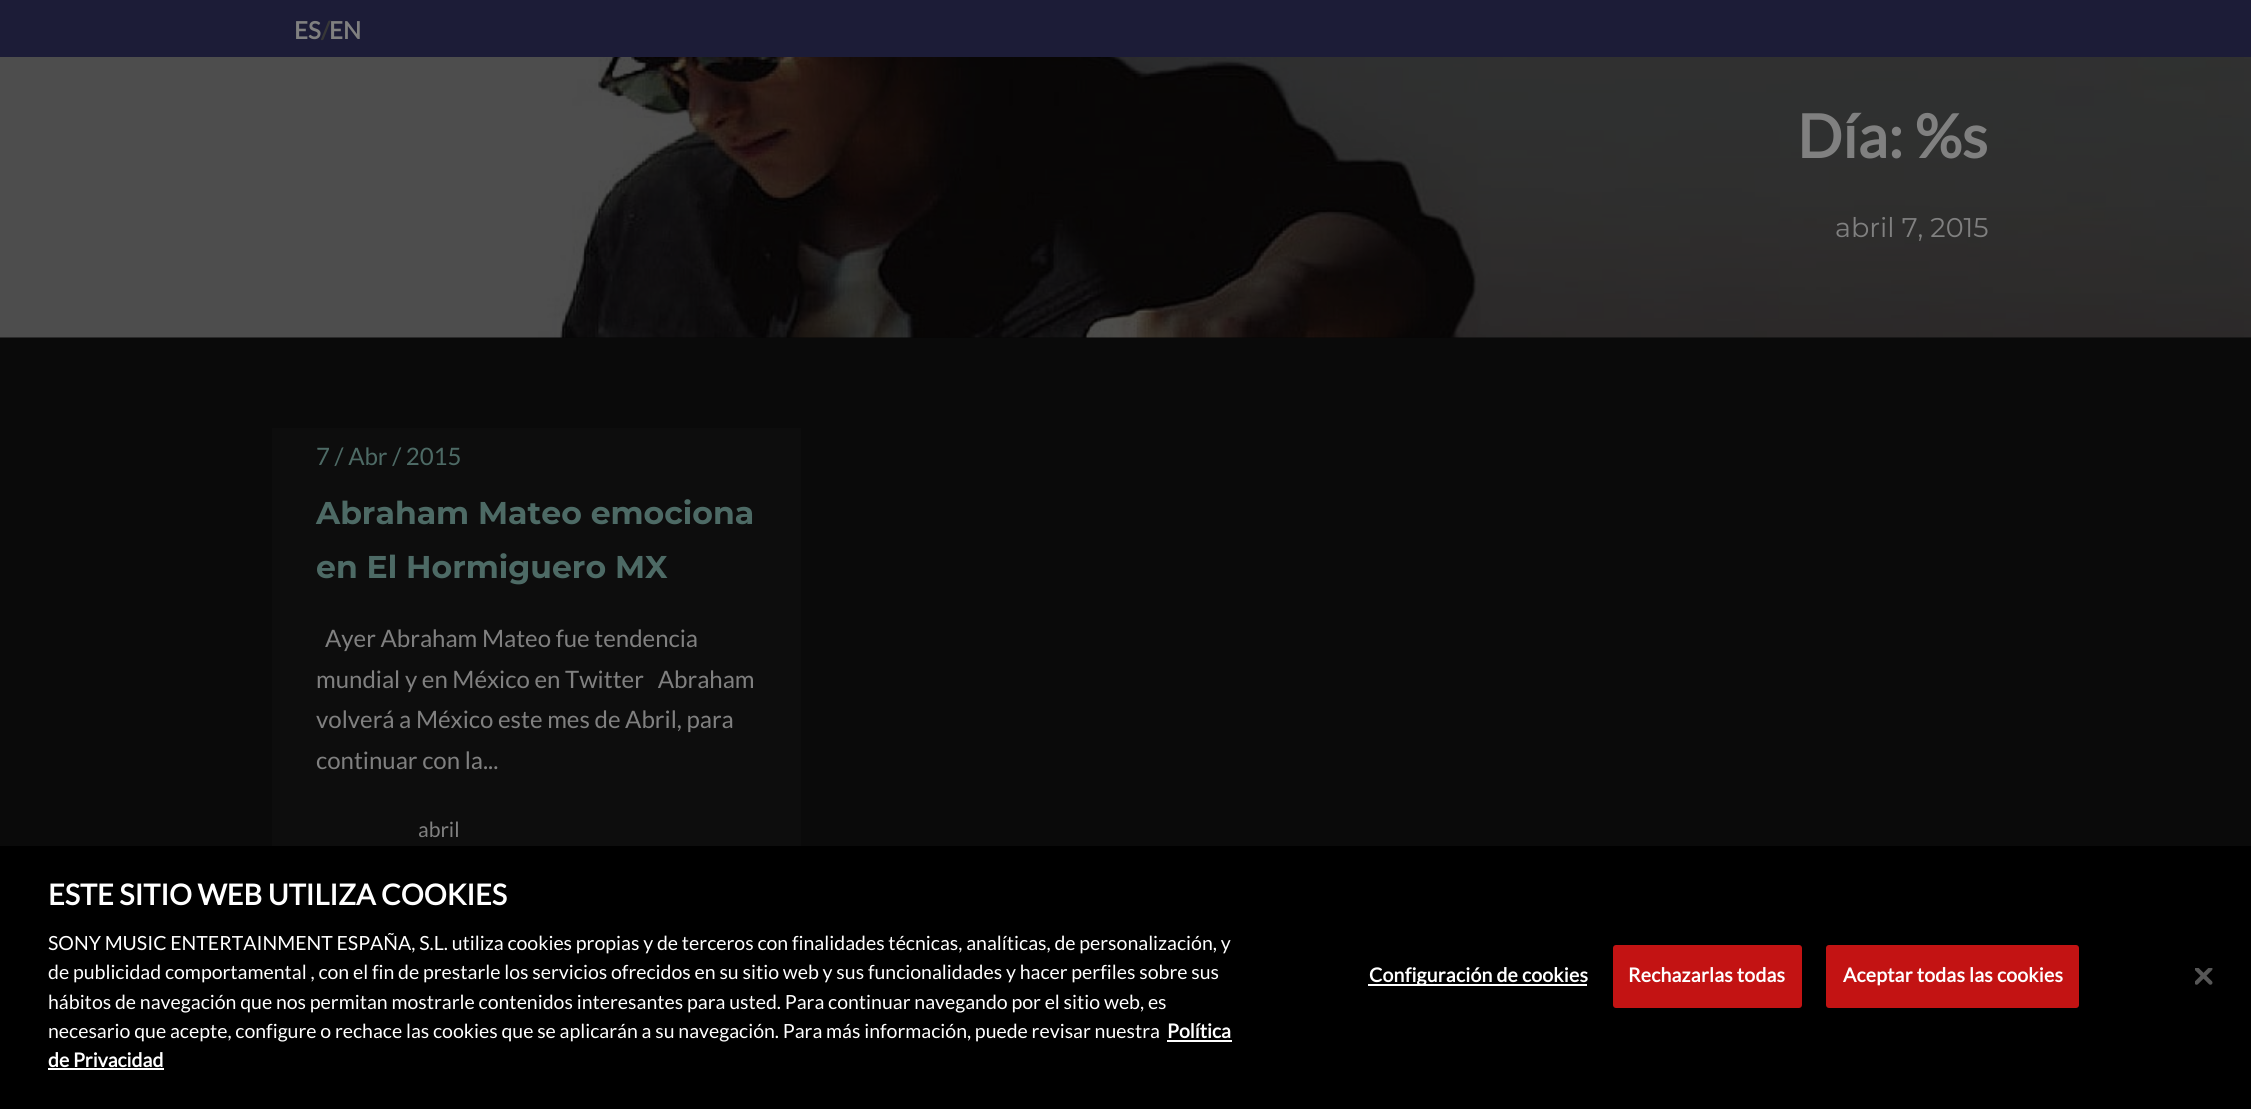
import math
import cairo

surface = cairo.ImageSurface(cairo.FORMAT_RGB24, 2251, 1109)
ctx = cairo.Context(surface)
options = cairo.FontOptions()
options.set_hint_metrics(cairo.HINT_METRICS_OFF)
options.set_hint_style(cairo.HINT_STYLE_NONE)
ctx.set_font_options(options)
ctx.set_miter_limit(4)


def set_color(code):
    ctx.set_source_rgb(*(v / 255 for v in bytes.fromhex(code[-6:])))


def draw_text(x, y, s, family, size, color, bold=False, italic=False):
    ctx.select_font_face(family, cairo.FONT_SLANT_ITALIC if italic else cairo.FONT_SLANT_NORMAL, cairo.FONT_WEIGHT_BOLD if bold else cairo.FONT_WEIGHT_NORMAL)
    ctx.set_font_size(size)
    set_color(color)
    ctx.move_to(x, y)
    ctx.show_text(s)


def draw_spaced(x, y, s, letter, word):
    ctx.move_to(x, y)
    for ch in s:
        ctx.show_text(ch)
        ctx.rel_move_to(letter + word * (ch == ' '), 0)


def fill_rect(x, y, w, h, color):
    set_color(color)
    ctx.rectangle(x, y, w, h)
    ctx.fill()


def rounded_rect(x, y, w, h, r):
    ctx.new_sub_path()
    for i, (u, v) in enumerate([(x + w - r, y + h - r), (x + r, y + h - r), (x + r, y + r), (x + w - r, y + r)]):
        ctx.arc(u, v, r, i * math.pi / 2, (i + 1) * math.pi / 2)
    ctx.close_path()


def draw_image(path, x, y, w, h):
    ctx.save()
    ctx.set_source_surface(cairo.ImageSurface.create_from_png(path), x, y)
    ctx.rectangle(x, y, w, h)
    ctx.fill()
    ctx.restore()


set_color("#0a0a0a")
ctx.paint()
fill_rect(0, 337, 2251, 1, "#060606")
fill_rect(0, 0, 2251, 57, "#1c1c37")
draw_text(294, 39, "ES", "Lato", 24, "#808080", bold=True)
draw_text(321, 39, "/", "Lato", 24, "#373737", bold=True)
draw_text(329, 39, "EN", "Lato", 24, "#808080", bold=True)
draw_image("assets/img1.png", 0, 57, 2251, 281)
draw_text(1797, 158, "Día: %s", "Lato", 60, "#808080", bold=True)
draw_text(1835, 237, "abril 7, 2015", "Montserrat", 27, "#808080")
fill_rect(272, 428, 529, 418, "#0d0d0d")
draw_text(316, 465, "7 / Abr / 2015", "Lato", 24, "#4d6a65")
draw_text(316, 524, "Abraham Mateo emociona", "Montserrat", 31.5, "#4d6a65", bold=True)
draw_text(316, 578, "en El Hormiguero MX", "Montserrat", 31.5, "#4d6a65", bold=True)
draw_text(325, 647, "Ayer Abraham Mateo fue tendencia", "Lato", 24, "#808080")
draw_text(316, 688, "mundial y en México en Twitter   Abraham", "Lato", 24, "#808080")
draw_text(316, 728, "volverá a México este mes de Abril, para", "Lato", 24, "#808080")
draw_text(316, 769, "continuar con la...", "Lato", 24, "#808080")
draw_text(418, 837, "abril", "Lato", 21, "#808080")
fill_rect(0, 846, 2251, 263, "#000000")
draw_text(48, 905, "ESTE SITIO WEB UTILIZA COOKIES", "Lato", 28.75, "#ffffff", bold=True)
draw_text(48, 950, "SONY MUSIC ENTERTAINMENT ESPAÑA, S.L. utiliza cookies propias y de terceros con finalidades técnicas, analíticas, de personalización, y", "Lato", 19.5, "#ffffff")
draw_text(48, 979, "de publicidad comportamental , con el fin de prestarle los servicios ofrecidos en su sitio web y sus funcionalidades y hacer perfiles sobre sus", "Lato", 19.5, "#ffffff")
draw_text(48, 1009, "hábitos de navegación que nos permitan mostrarle contenidos interesantes para usted. Para continuar navegando por el sitio web, es", "Lato", 19.5, "#ffffff")
draw_text(48, 1038, "necesario que acepte, configure o rechace las cookies que se aplicarán a su navegación. Para más información, puede revisar nuestra", "Lato", 19.5, "#ffffff")
draw_text(1167, 1038, "Política", "Lato", 19.5, "#ffffff", bold=True)
fill_rect(1167, 1040, 65, 2, "#ffffff")
draw_text(48, 1067, "de Privacidad", "Lato", 19.5, "#ffffff", bold=True)
fill_rect(48, 1068, 116, 2, "#ffffff")
fill_rect(1368, 984, 219, 2, "#ffffff")
draw_spaced(1369, 982, "Configuración de cookies", 0.2, 0)
set_color("#c31313")
rounded_rect(1614, 946, 187, 61, 2)
ctx.fill_preserve()
ctx.stroke()
set_color("#ffffff")
draw_spaced(1628, 982, "Rechazarlas todas", 0.2, 0)
set_color("#c31313")
rounded_rect(1827, 946, 251, 61, 2)
ctx.fill_preserve()
ctx.stroke()
set_color("#ffffff")
draw_spaced(1843, 982, "Aceptar todas las cookies", 0.2, 0)
draw_image("assets/img2.png", 2195, 968, 18, 17)
surface.write_to_png("output.png")
